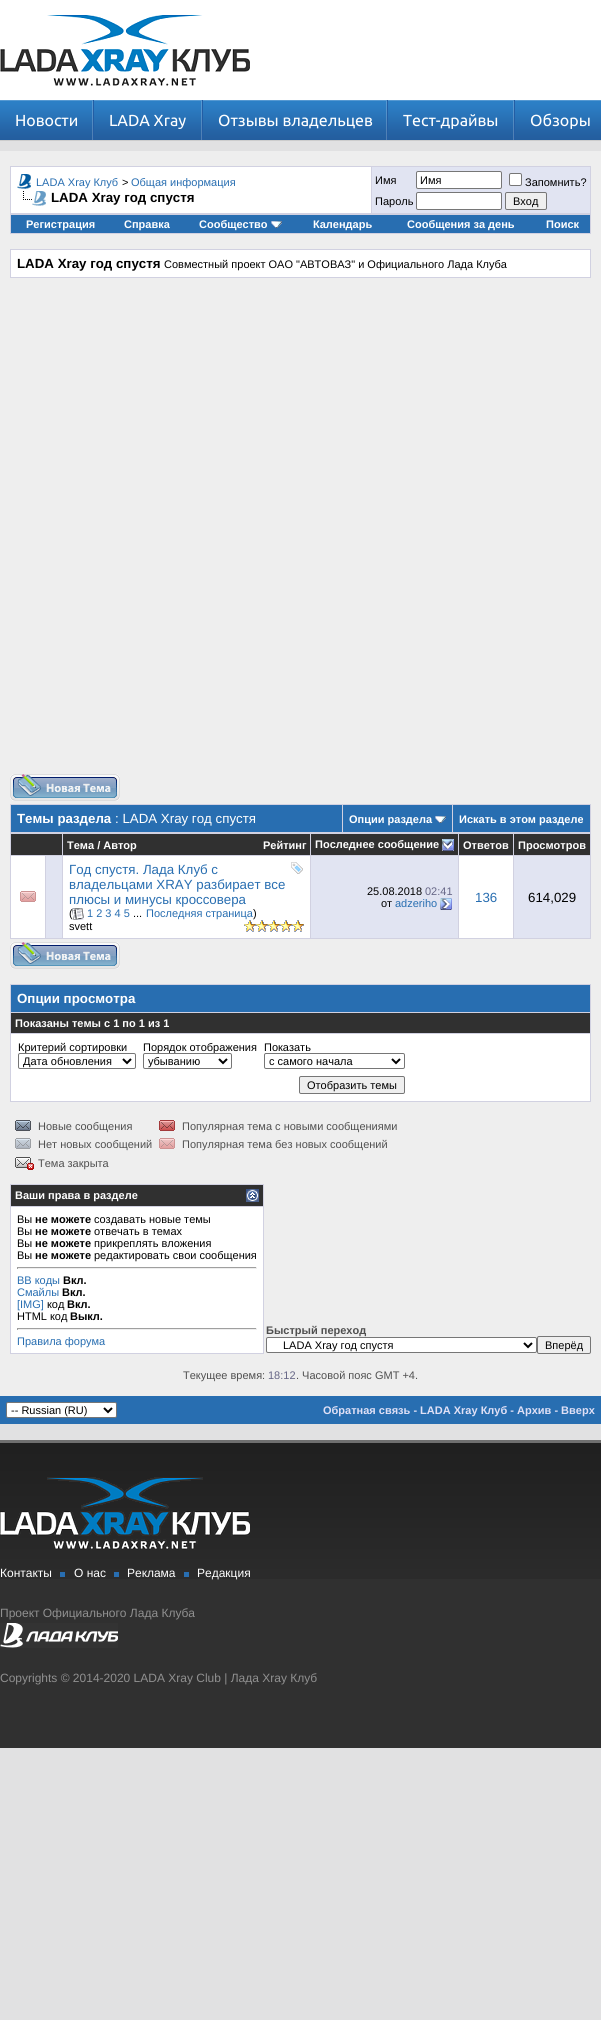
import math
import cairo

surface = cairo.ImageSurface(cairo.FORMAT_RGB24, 601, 2020)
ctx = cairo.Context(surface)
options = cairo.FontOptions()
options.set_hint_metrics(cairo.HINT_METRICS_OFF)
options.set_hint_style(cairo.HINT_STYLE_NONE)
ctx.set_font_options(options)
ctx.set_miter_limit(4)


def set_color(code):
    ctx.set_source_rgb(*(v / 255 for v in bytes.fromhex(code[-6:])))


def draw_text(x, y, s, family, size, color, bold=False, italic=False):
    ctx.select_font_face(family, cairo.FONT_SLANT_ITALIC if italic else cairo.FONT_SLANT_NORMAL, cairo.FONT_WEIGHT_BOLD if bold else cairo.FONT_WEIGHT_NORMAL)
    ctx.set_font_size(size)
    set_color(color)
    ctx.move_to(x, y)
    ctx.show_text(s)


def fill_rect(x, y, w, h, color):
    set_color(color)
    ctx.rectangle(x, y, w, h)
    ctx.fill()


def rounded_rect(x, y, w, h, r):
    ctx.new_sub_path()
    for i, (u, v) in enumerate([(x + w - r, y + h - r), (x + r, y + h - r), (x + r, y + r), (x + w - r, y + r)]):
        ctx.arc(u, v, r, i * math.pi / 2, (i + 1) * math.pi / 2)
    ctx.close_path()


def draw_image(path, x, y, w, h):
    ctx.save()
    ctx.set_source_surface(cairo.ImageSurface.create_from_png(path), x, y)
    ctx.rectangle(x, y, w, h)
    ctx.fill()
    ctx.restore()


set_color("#e1e1e2")
ctx.paint()
fill_rect(0, 0, 601, 100, "#ffffff")
draw_image("assets/img1.png", 0, 15, 250, 71)
draw_image("assets/img2.png", 0, 100, 601, 40)
fill_rect(0, 140, 601, 1, "#cccccc")
ctx.save()
ctx.rectangle(0, 100, 93, 40)
ctx.clip()
ctx.set_source_rgba(1, 1, 1, 0.2)
ctx.set_fill_rule(cairo.FILL_RULE_EVEN_ODD)
ctx.new_path()
ctx.move_to(-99, 1)
ctx.line_to(192, 1)
ctx.line_to(192, 239)
ctx.line_to(-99, 239)
ctx.close_path()
ctx.move_to(-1, 101)
ctx.line_to(92, 101)
ctx.line_to(92, 141)
ctx.line_to(-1, 141)
ctx.close_path()
ctx.fill()
ctx.restore()
fill_rect(93, 100, 1, 40, "#235da4")
draw_text(15, 126, "Новости", "Ubuntu", 16, "#ffffff")
ctx.save()
ctx.rectangle(94, 100, 108, 40)
ctx.clip()
ctx.set_source_rgba(1, 1, 1, 0.2)
ctx.set_fill_rule(cairo.FILL_RULE_EVEN_ODD)
ctx.new_path()
ctx.move_to(-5, 1)
ctx.line_to(301, 1)
ctx.line_to(301, 239)
ctx.line_to(-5, 239)
ctx.close_path()
ctx.move_to(93, 101)
ctx.line_to(201, 101)
ctx.line_to(201, 141)
ctx.line_to(93, 141)
ctx.close_path()
ctx.fill()
ctx.restore()
fill_rect(202, 100, 1, 40, "#235da4")
draw_text(109, 126, "LADA Xray", "Ubuntu", 16, "#ffffff")
ctx.save()
ctx.rectangle(203, 100, 184, 40)
ctx.clip()
ctx.set_source_rgba(1, 1, 1, 0.2)
ctx.set_fill_rule(cairo.FILL_RULE_EVEN_ODD)
ctx.new_path()
ctx.move_to(104, 1)
ctx.line_to(486, 1)
ctx.line_to(486, 239)
ctx.line_to(104, 239)
ctx.close_path()
ctx.move_to(202, 101)
ctx.line_to(386, 101)
ctx.line_to(386, 141)
ctx.line_to(202, 141)
ctx.close_path()
ctx.fill()
ctx.restore()
fill_rect(387, 100, 1, 40, "#235da4")
draw_text(218, 126, "Отзывы владельцев", "Ubuntu", 16, "#ffffff")
ctx.save()
ctx.rectangle(388, 100, 126, 40)
ctx.clip()
ctx.set_source_rgba(1, 1, 1, 0.2)
ctx.set_fill_rule(cairo.FILL_RULE_EVEN_ODD)
ctx.new_path()
ctx.move_to(289, 1)
ctx.line_to(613, 1)
ctx.line_to(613, 239)
ctx.line_to(289, 239)
ctx.close_path()
ctx.move_to(387, 101)
ctx.line_to(513, 101)
ctx.line_to(513, 141)
ctx.line_to(387, 141)
ctx.close_path()
ctx.fill()
ctx.restore()
fill_rect(514, 100, 1, 40, "#235da4")
draw_text(403, 126, "Тест-драйвы", "Ubuntu", 16, "#ffffff")
ctx.save()
ctx.rectangle(515, 100, 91, 40)
ctx.clip()
set_color("#5699d2")
ctx.set_fill_rule(cairo.FILL_RULE_EVEN_ODD)
ctx.new_path()
ctx.move_to(416, 1)
ctx.line_to(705, 1)
ctx.line_to(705, 239)
ctx.line_to(416, 239)
ctx.close_path()
ctx.move_to(514, 101)
ctx.line_to(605, 101)
ctx.line_to(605, 141)
ctx.line_to(514, 141)
ctx.close_path()
ctx.fill()
ctx.restore()
draw_text(530, 126, "Обзоры", "Ubuntu", 16, "#ffffff")
fill_rect(0, 151, 601, 1245, "#eeeeee")
fill_rect(10, 166, 581, 68, "#d1d1e1")
fill_rect(11, 167, 360, 46, "#ffffff")
draw_image("assets/img3.png", 17, 174, 14, 15)
draw_text(36, 186, "LADA Xray Клуб", "Liberation Sans", 11, "#286eb1")
draw_text(122, 186, ">", "Liberation Sans", 11, "#000000")
draw_text(131, 186, "Общая информация", "Liberation Sans", 11, "#286eb1")
draw_image("assets/img4.png", 23, 191, 23, 15)
draw_text(51, 202, "LADA Xray год спустя", "Liberation Sans", 13.3, "#000000", bold=True)
fill_rect(372, 167, 218, 46, "#e1e4f2")
draw_text(375, 184, "Имя", "Liberation Sans", 11, "#000000")
set_color("#ffffff")
rounded_rect(416.5, 171.5, 85, 17, 1.5)
ctx.fill_preserve()
set_color("#767676")
ctx.set_line_width(1)
ctx.stroke()
draw_text(420, 184, "Имя", "Liberation Sans", 11, "#000000")
set_color("#ffffff")
rounded_rect(509.5, 173.5, 12, 12, 1.5)
ctx.fill_preserve()
set_color("#767676")
ctx.stroke()
draw_text(525, 186, "Запомнить?", "Liberation Sans", 11, "#000000")
draw_text(375, 205, "Пароль", "Liberation Sans", 11, "#000000")
set_color("#ffffff")
rounded_rect(416.5, 192.5, 85, 17, 1.5)
ctx.fill_preserve()
set_color("#767676")
ctx.stroke()
set_color("#efefef")
rounded_rect(505.5, 192.5, 41, 17, 1.5)
ctx.fill_preserve()
set_color("#767676")
ctx.stroke()
draw_text(513, 205, "Вход", "Liberation Sans", 11, "#000000")
fill_rect(11, 215, 579, 18, "#286eb1")
draw_text(26, 228, "Регистрация", "Liberation Sans", 11, "#ffffff", bold=True)
draw_text(124, 228, "Справка", "Liberation Sans", 11, "#ffffff", bold=True)
draw_text(199, 228, "Сообщество", "Liberation Sans", 11, "#ffffff", bold=True)
draw_image("assets/img5.png", 271, 221, 11, 7)
draw_text(313, 228, "Календарь", "Liberation Sans", 11, "#ffffff", bold=True)
draw_text(407, 228, "Сообщения за день", "Liberation Sans", 11, "#ffffff", bold=True)
draw_text(546, 228, "Поиск", "Liberation Sans", 11, "#ffffff", bold=True)
fill_rect(10, 249, 581, 29, "#d1d1e1")
fill_rect(11, 250, 579, 27, "#ffffff")
draw_text(17, 268, "LADA Xray год спустя", "Liberation Sans", 13.3, "#000000", bold=True)
draw_text(164, 268, "Совместный проект ОАО \"АВТОВАЗ\" и Официального Лада Клуба", "Liberation Sans", 11, "#000000")
draw_image("assets/img6.png", 10, 774, 110, 27)
fill_rect(10, 804, 581, 135, "#d1d1e1")
fill_rect(11, 805, 331, 27, "#286eb1")
draw_text(17, 823, "Темы раздела", "Liberation Sans", 13.3, "#ffffff", bold=True)
draw_text(115, 823, ": LADA Xray год спустя", "Liberation Sans", 13.3, "#ffffff")
fill_rect(343, 805, 109, 27, "#286eb1")
draw_text(349, 823, "Опции раздела", "Liberation Sans", 11, "#ffffff", bold=True)
draw_image("assets/img5.png", 435, 816, 11, 7)
fill_rect(453, 805, 137, 27, "#286eb1")
draw_text(459, 823, "Искать в этом разделе", "Liberation Sans", 11, "#ffffff", bold=True)
fill_rect(11, 834, 51, 21, "#303030")
fill_rect(63, 834, 247, 21, "#303030")
draw_text(67, 849, "Тема / Автор", "Liberation Sans", 11, "#ffffff", bold=True)
draw_text(263, 849, "Рейтинг", "Liberation Sans", 11, "#ffffff", bold=True)
fill_rect(311, 834, 147, 21, "#303030")
draw_text(315, 848, "Последнее сообщение", "Liberation Sans", 11, "#ffffff", bold=True)
draw_image("assets/img7.png", 442, 839, 12, 12)
fill_rect(459, 834, 54, 21, "#303030")
draw_text(463, 849, "Ответов", "Liberation Sans", 11, "#ffffff", bold=True)
fill_rect(514, 834, 76, 21, "#303030")
draw_text(518, 849, "Просмотров", "Liberation Sans", 11, "#ffffff", bold=True)
fill_rect(11, 856, 34, 82, "#ffffff")
draw_image("assets/img8.png", 20, 891, 16, 11)
fill_rect(46, 856, 16, 82, "#e1e4f2")
fill_rect(63, 856, 247, 82, "#ffffff")
draw_text(69, 874, "Год спустя. Лада Клуб с", "Liberation Sans", 13.3, "#286eb1")
draw_image("assets/img9.png", 291, 862, 12, 12)
draw_text(69, 889, "владельцами XRAY разбирает все", "Liberation Sans", 13.3, "#286eb1")
draw_text(69, 904, "плюсы и минусы кроссовера", "Liberation Sans", 13.3, "#286eb1")
draw_text(69, 917, "(", "Liberation Sans", 11, "#000000")
draw_image("assets/img10.png", 72, 908, 12, 12)
draw_text(87, 917, "1 2 3 4 5", "Liberation Sans", 11, "#286eb1")
draw_text(133, 917, "...", "Liberation Sans", 11, "#000000")
draw_text(146, 917, "Последняя страница", "Liberation Sans", 11, "#286eb1")
draw_text(253, 917, ")", "Liberation Sans", 11, "#000000")
draw_text(69, 930, "svett", "Liberation Sans", 11, "#000000")
draw_image("assets/img11.png", 244, 920, 60, 12)
fill_rect(311, 856, 147, 82, "#e1e4f2")
draw_text(367, 895, "25.08.2018", "Liberation Sans", 11, "#000000")
draw_text(425, 895, "02:41", "Liberation Sans", 11, "#666686")
draw_text(381, 907, "от", "Liberation Sans", 11, "#000000")
draw_text(395, 907, "adzeriho", "Liberation Sans", 11, "#286eb1")
draw_image("assets/img12.png", 440, 898, 12, 12)
fill_rect(459, 856, 54, 82, "#ffffff")
draw_text(475, 902, "136", "Liberation Sans", 13.3, "#286eb1")
fill_rect(514, 856, 76, 82, "#e1e4f2")
draw_text(528, 902, "614,029", "Liberation Sans", 13.3, "#000000")
draw_image("assets/img6.png", 10, 942, 110, 27)
fill_rect(10, 984, 581, 118, "#d1d1e1")
fill_rect(11, 985, 579, 27, "#286eb1")
draw_text(17, 1003, "Опции просмотра", "Liberation Sans", 13.3, "#ffffff", bold=True)
fill_rect(11, 1013, 579, 20, "#303030")
draw_text(15, 1027, "Показаны темы с 1 по 1 из 1", "Liberation Sans", 11, "#ffffff", bold=True)
fill_rect(11, 1034, 579, 67, "#ffffff")
draw_text(18, 1051, "Критерий сортировки", "Liberation Sans", 11, "#000000")
set_color("#ffffff")
rounded_rect(18.5, 1053.5, 117, 15, 1.5)
ctx.fill_preserve()
set_color("#767676")
ctx.stroke()
ctx.new_path()
ctx.move_to(123, 1059)
ctx.line_to(127, 1063)
ctx.line_to(131, 1059)
set_color("#000000")
ctx.set_line_width(2)
ctx.stroke()
draw_text(23, 1065, "Дата обновления", "Liberation Sans", 11, "#000000")
draw_text(143, 1051, "Порядок отображения", "Liberation Sans", 11, "#000000")
set_color("#ffffff")
rounded_rect(143.5, 1053.5, 88, 15, 1.5)
ctx.fill_preserve()
set_color("#767676")
ctx.set_line_width(1)
ctx.stroke()
ctx.new_path()
ctx.move_to(219, 1059)
ctx.line_to(223, 1063)
ctx.line_to(227, 1059)
set_color("#000000")
ctx.set_line_width(2)
ctx.stroke()
draw_text(148, 1065, "убыванию", "Liberation Sans", 11, "#000000")
draw_text(264, 1051, "Показать", "Liberation Sans", 11, "#000000")
rounded_rect(264.5, 1053.5, 140, 15, 1.5)
set_color("#767676")
ctx.set_line_width(1)
ctx.stroke()
ctx.new_path()
ctx.move_to(392, 1059)
ctx.line_to(396, 1063)
ctx.line_to(400, 1059)
set_color("#000000")
ctx.set_line_width(2)
ctx.stroke()
draw_text(269, 1065, "с самого начала", "Liberation Sans", 11, "#000000")
set_color("#efefef")
rounded_rect(299.5, 1076.5, 105, 17, 1.5)
ctx.fill_preserve()
set_color("#767676")
ctx.set_line_width(1)
ctx.stroke()
draw_text(307, 1089, "Отобразить темы", "Liberation Sans", 11, "#000000")
draw_image("assets/img13.png", 15, 1120, 16, 11)
draw_text(38, 1130, "Новые сообщения", "Liberation Sans", 11, "#505050")
draw_image("assets/img14.png", 159, 1120, 16, 11)
draw_text(182, 1130, "Популярная тема с новыми сообщениями", "Liberation Sans", 11, "#505050")
draw_image("assets/img15.png", 15, 1138, 16, 11)
draw_text(38, 1148, "Нет новых сообщений", "Liberation Sans", 11, "#505050")
draw_image("assets/img16.png", 159, 1138, 16, 11)
draw_text(182, 1148, "Популярная тема без новых сообщений", "Liberation Sans", 11, "#505050")
draw_image("assets/img17.png", 15, 1157, 19, 13)
draw_text(38, 1167, "Тема закрыта", "Liberation Sans", 11, "#505050")
fill_rect(10, 1184, 254, 170, "#d1d1e1")
fill_rect(11, 1185, 252, 21, "#303030")
draw_text(15, 1199, "Ваши права в разделе", "Liberation Sans", 11, "#ffffff", bold=True)
draw_image("assets/img18.png", 246, 1189, 13, 13)
fill_rect(11, 1207, 252, 146, "#ffffff")
draw_text(17, 1223, "Вы", "Liberation Sans", 11, "#000000")
draw_text(35, 1223, "не можете", "Liberation Sans", 11, "#000000", bold=True)
draw_text(94, 1223, "создавать новые темы", "Liberation Sans", 11, "#000000")
draw_text(17, 1235, "Вы", "Liberation Sans", 11, "#000000")
draw_text(35, 1235, "не можете", "Liberation Sans", 11, "#000000", bold=True)
draw_text(94, 1235, "отвечать в темах", "Liberation Sans", 11, "#000000")
draw_text(17, 1247, "Вы", "Liberation Sans", 11, "#000000")
draw_text(35, 1247, "не можете", "Liberation Sans", 11, "#000000", bold=True)
draw_text(94, 1247, "прикреплять вложения", "Liberation Sans", 11, "#000000")
draw_text(17, 1259, "Вы", "Liberation Sans", 11, "#000000")
draw_text(35, 1259, "не можете", "Liberation Sans", 11, "#000000", bold=True)
draw_text(94, 1259, "редактировать свои сообщения", "Liberation Sans", 11, "#000000")
fill_rect(17, 1267, 240, 1, "#9f9f9f")
fill_rect(256, 1267, 1, 2, "#eeeeee")
fill_rect(17, 1268, 240, 1, "#eeeeee")
fill_rect(17, 1267, 1, 2, "#9f9f9f")
draw_text(17, 1284, "BB коды", "Liberation Sans", 11, "#286eb1")
draw_text(63, 1284, "Вкл.", "Liberation Sans", 11, "#000000", bold=True)
draw_text(17, 1296, "Смайлы", "Liberation Sans", 11, "#286eb1")
draw_text(62, 1296, "Вкл.", "Liberation Sans", 11, "#000000", bold=True)
draw_text(17, 1308, "[IMG]", "Liberation Sans", 11, "#286eb1")
draw_text(47, 1308, "код", "Liberation Sans", 11, "#000000")
draw_text(67, 1308, "Вкл.", "Liberation Sans", 11, "#000000", bold=True)
draw_text(17, 1320, "HTML код", "Liberation Sans", 11, "#000000")
draw_text(70, 1320, "Выкл.", "Liberation Sans", 11, "#000000", bold=True)
fill_rect(17, 1328, 240, 1, "#9f9f9f")
fill_rect(256, 1328, 1, 2, "#eeeeee")
fill_rect(17, 1329, 240, 1, "#eeeeee")
fill_rect(17, 1328, 1, 2, "#9f9f9f")
draw_text(17, 1345, "Правила форума", "Liberation Sans", 11, "#286eb1")
draw_text(266, 1334, "Быстрый переход", "Liberation Sans", 11, "#505050", bold=True)
set_color("#ffffff")
rounded_rect(266.5, 1337.5, 270, 15, 1.5)
ctx.fill_preserve()
set_color("#767676")
ctx.stroke()
ctx.new_path()
ctx.move_to(524, 1343)
ctx.line_to(528, 1347)
ctx.line_to(532, 1343)
set_color("#000000")
ctx.set_line_width(2)
ctx.stroke()
draw_text(283, 1349, "LADA Xray год спустя", "Liberation Sans", 11, "#000000")
rounded_rect(537.5, 1336.5, 53, 17, 1.5)
set_color("#767676")
ctx.set_line_width(1)
ctx.stroke()
draw_text(545, 1349, "Вперёд", "Liberation Sans", 11, "#000000")
draw_text(183, 1379, "Текущее время:", "Liberation Sans", 11, "#505050")
draw_text(268, 1379, "18:12", "Liberation Sans", 11, "#666686")
draw_text(296, 1379, ". Часовой пояс GMT +4.", "Liberation Sans", 11, "#505050")
fill_rect(0, 1396, 601, 28, "#286eb1")
set_color("#ffffff")
rounded_rect(6.5, 1402.5, 110, 15, 1.5)
ctx.fill_preserve()
set_color("#767676")
ctx.stroke()
ctx.new_path()
ctx.move_to(104, 1408)
ctx.line_to(108, 1412)
ctx.line_to(112, 1408)
set_color("#000000")
ctx.set_line_width(2)
ctx.stroke()
draw_text(11, 1414, "-- Russian (RU)", "Liberation Sans", 11, "#000000")
draw_text(323, 1414, "Обратная связь - LADA Xray Клуб - Архив - Вверх", "Liberation Sans", 11, "#e0e0f6", bold=True)
fill_rect(0, 1579, 601, 169, "#303030")
draw_image("assets/img19.png", 0, 1443, 601, 136)
fill_rect(0, 1440, 601, 3, "#707070")
draw_image("assets/img20.png", 0, 1477, 250, 73)
draw_text(0, 1577, "Контакты", "Liberation Sans", 12, "#ffffff")
fill_rect(60, 1572, 5, 5, "#286eb1")
draw_text(74, 1577, "О нас", "Liberation Sans", 12, "#ffffff")
fill_rect(114, 1572, 5, 5, "#286eb1")
draw_text(127, 1577, "Реклама", "Liberation Sans", 12, "#ffffff")
fill_rect(184, 1572, 5, 5, "#286eb1")
draw_text(197, 1577, "Редакция", "Liberation Sans", 12, "#ffffff")
draw_text(0, 1617, "Проект Официального Лада Клуба", "Liberation Sans", 12, "#909090")
draw_image("assets/img21.png", 0, 1623, 118, 25)
draw_text(0, 1682, "Copyrights © 2014-2020 LADA Xray Club | Лада Xray Клуб", "Liberation Sans", 12, "#909090")
surface.write_to_png("output.png")
